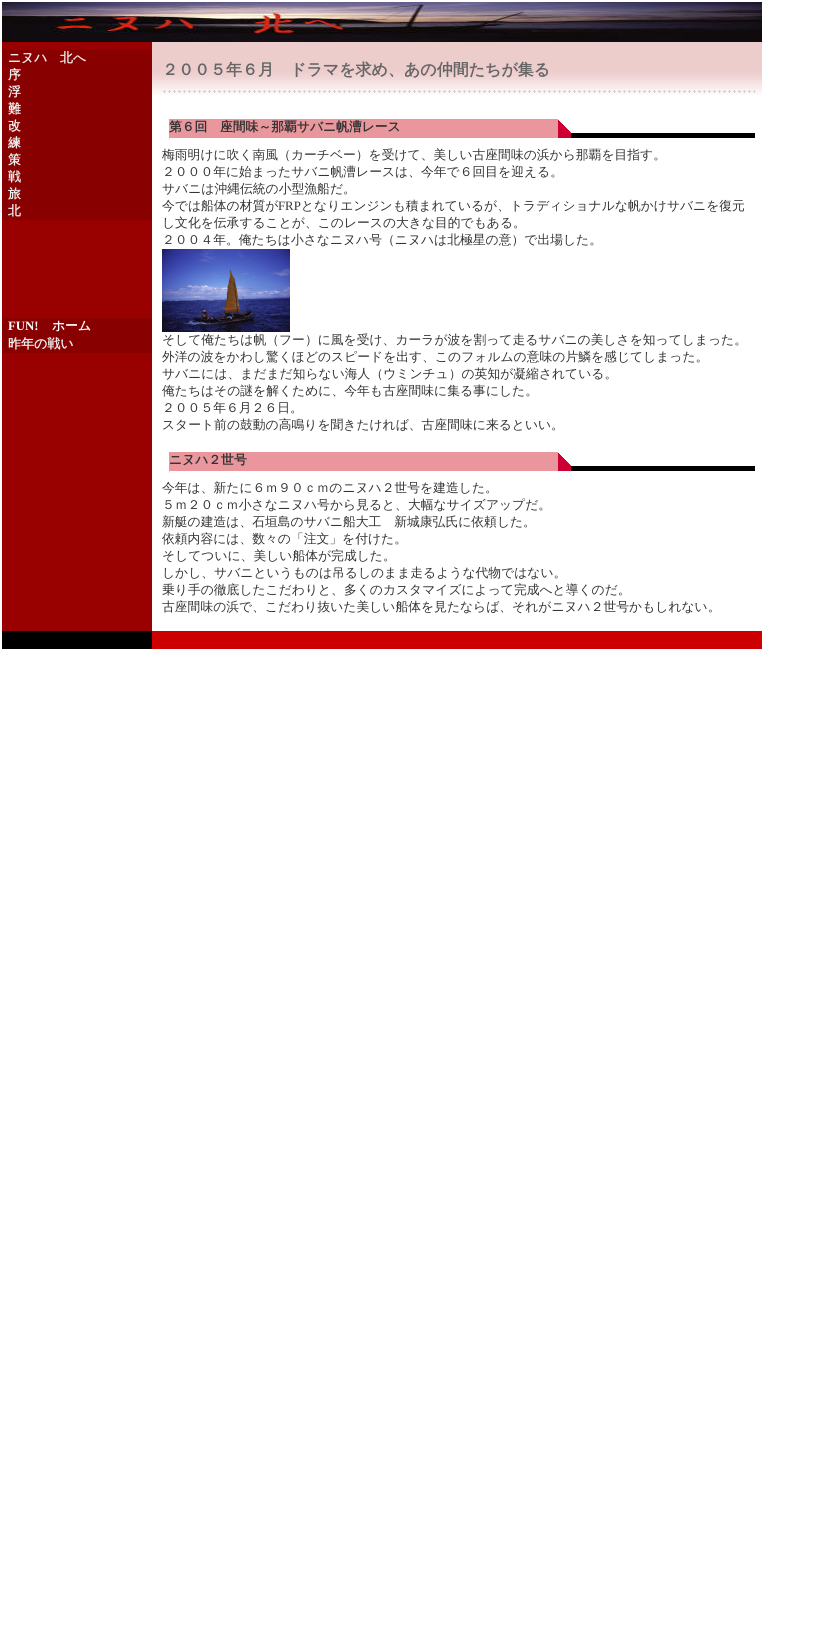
import math
import cairo

surface = cairo.ImageSurface(cairo.FORMAT_RGB24, 819, 1626)
ctx = cairo.Context(surface)
options = cairo.FontOptions()
options.set_hint_metrics(cairo.HINT_METRICS_OFF)
options.set_hint_style(cairo.HINT_STYLE_NONE)
ctx.set_font_options(options)
ctx.set_miter_limit(4)


def set_color(code):
    ctx.set_source_rgb(*(v / 255 for v in bytes.fromhex(code[-6:])))


def draw_text(x, y, s, family, size, color, bold=False, italic=False):
    ctx.select_font_face(family, cairo.FONT_SLANT_ITALIC if italic else cairo.FONT_SLANT_NORMAL, cairo.FONT_WEIGHT_BOLD if bold else cairo.FONT_WEIGHT_NORMAL)
    ctx.set_font_size(size)
    set_color(color)
    ctx.move_to(x, y)
    ctx.show_text(s)


def fill_rect(x, y, w, h, color):
    set_color(color)
    ctx.rectangle(x, y, w, h)
    ctx.fill()


def draw_image(path, x, y, w, h):
    ctx.save()
    ctx.set_source_surface(cairo.ImageSurface.create_from_png(path), x, y)
    ctx.rectangle(x, y, w, h)
    ctx.fill()
    ctx.restore()


set_color("#ffffff")
ctx.paint()
draw_image("assets/img1.png", 152, 42, 610, 53)
draw_image("assets/img2.png", 2, 2, 760, 40)
fill_rect(2, 42, 150, 589, "#990000")
fill_rect(2, 50, 150, 170, "#880000")
draw_text(8, 62, "ニヌハ　北へ", "WenQuanYi Zen Hei", 12.8, "#eeeeee", bold=True)
draw_text(8, 79, "序", "WenQuanYi Zen Hei", 12.8, "#eeeeee", bold=True)
draw_text(8, 96, "浮", "WenQuanYi Zen Hei", 12.8, "#eeeeee", bold=True)
draw_text(8, 113, "難", "WenQuanYi Zen Hei", 12.8, "#eeeeee", bold=True)
draw_text(8, 130, "改", "WenQuanYi Zen Hei", 12.8, "#eeeeee", bold=True)
draw_text(8, 147, "練", "WenQuanYi Zen Hei", 12.8, "#eeeeee", bold=True)
draw_text(8, 164, "策", "WenQuanYi Zen Hei", 12.8, "#eeeeee", bold=True)
draw_text(8, 181, "戦", "WenQuanYi Zen Hei", 12.8, "#eeeeee", bold=True)
draw_text(8, 198, "旅", "WenQuanYi Zen Hei", 12.8, "#eeeeee", bold=True)
draw_text(8, 215, "北", "WenQuanYi Zen Hei", 12.8, "#eeeeee", bold=True)
fill_rect(2, 318, 150, 35, "#880000")
draw_text(8, 330, "FUN!", "Liberation Serif", 12.8, "#ffffff", bold=True)
draw_text(52, 330, "ホーム", "WenQuanYi Zen Hei", 12.8, "#ffffff", bold=True)
draw_text(8, 348, "昨年の戦い", "WenQuanYi Zen Hei", 13, "#eeeeee", bold=True)
draw_text(162, 75, "２００５年６月　ドラマを求め、あの仲間たちが集る", "WenQuanYi Zen Hei", 16, "#666666", bold=True)
draw_image("assets/img3.png", 163, 90, 592, 3)
draw_image("assets/img4.png", 169, 119, 586, 21)
draw_text(169, 131, "第６回", "WenQuanYi Zen Hei", 12.8, "#333333", bold=True)
draw_text(220, 131, "座間味～那覇サバニ帆漕レース", "WenQuanYi Zen Hei", 12.8, "#333333", bold=True)
draw_text(162, 159, "梅雨明けに吹く南風（カーチベー）を受けて、美しい古座間味の浜から那覇を目指す。", "WenQuanYi Zen Hei Medium", 12.8, "#333333")
draw_text(162, 176, "２０００年に始まったサバニ帆漕レースは、今年で６回目を迎える。", "WenQuanYi Zen Hei Medium", 12.8, "#333333")
draw_text(162, 193, "サバニは沖縄伝統の小型漁船だ。", "WenQuanYi Zen Hei Medium", 12.8, "#333333")
draw_text(162, 210, "今では船体の材質が", "WenQuanYi Zen Hei Medium", 12.8, "#333333")
draw_text(278, 210, "FRP", "Liberation Serif", 12.8, "#333333")
draw_text(301, 210, "となりエンジンも積まれているが、トラディショナルな帆かけサバニを復元", "WenQuanYi Zen Hei Medium", 12.8, "#333333")
draw_text(162, 227, "し文化を伝承することが、このレースの大きな目的でもある。", "WenQuanYi Zen Hei Medium", 12.8, "#333333")
draw_text(162, 244, "２００４年。俺たちは小さなニヌハ号（ニヌハは北極星の意）で出場した。", "WenQuanYi Zen Hei Medium", 12.8, "#333333")
draw_image("assets/img5.png", 162, 249, 128, 83)
draw_text(162, 344, "そして俺たちは帆（フー）に風を受け、カーラが波を割って走るサバニの美しさを知ってしまった。", "WenQuanYi Zen Hei Medium", 12.8, "#333333")
draw_text(162, 361, "外洋の波をかわし驚くほどのスピードを出す、このフォルムの意味の片鱗を感じてしまった。", "WenQuanYi Zen Hei Medium", 12.8, "#333333")
draw_text(162, 378, "サバニには、まだまだ知らない海人（ウミンチュ）の英知が凝縮されている。", "WenQuanYi Zen Hei Medium", 12.8, "#333333")
draw_text(162, 395, "俺たちはその謎を解くために、今年も古座間味に集る事にした。", "WenQuanYi Zen Hei Medium", 12.8, "#333333")
draw_text(162, 412, "２００５年６月２６日。", "WenQuanYi Zen Hei Medium", 12.8, "#333333")
draw_text(162, 429, "スタート前の鼓動の高鳴りを聞きたければ、古座間味に来るといい。", "WenQuanYi Zen Hei Medium", 12.8, "#333333")
draw_image("assets/img4.png", 169, 452, 586, 21)
draw_text(169, 464, "ニヌハ２世号", "WenQuanYi Zen Hei", 12.8, "#333333", bold=True)
draw_text(162, 492, "今年は、新たに６ｍ９０ｃｍのニヌハ２世号を建造した。", "WenQuanYi Zen Hei Medium", 12.8, "#333333")
draw_text(162, 509, "５ｍ２０ｃｍ小さなニヌハ号から見ると、大幅なサイズアップだ。", "WenQuanYi Zen Hei Medium", 12.8, "#333333")
draw_text(162, 526, "新艇の建造は、石垣島のサバニ船大工　新城康弘氏に依頼した。", "WenQuanYi Zen Hei Medium", 12.8, "#333333")
draw_text(162, 543, "依頼内容には、数々の「注文」を付けた。", "WenQuanYi Zen Hei Medium", 12.8, "#333333")
draw_text(162, 560, "そしてついに、美しい船体が完成した。", "WenQuanYi Zen Hei Medium", 12.8, "#333333")
draw_text(162, 577, "しかし、サバニというものは吊るしのまま走るような代物ではない。", "WenQuanYi Zen Hei Medium", 12.8, "#333333")
draw_text(162, 594, "乗り手の徹底したこだわりと、多くのカスタマイズによって完成へと導くのだ。", "WenQuanYi Zen Hei Medium", 12.8, "#333333")
draw_text(162, 611, "古座間味の浜で、こだわり抜いた美しい船体を見たならば、それがニヌハ２世号かもしれない。", "WenQuanYi Zen Hei Medium", 12.8, "#333333")
fill_rect(2, 631, 150, 18, "#000000")
fill_rect(152, 631, 610, 18, "#cc0000")
surface.write_to_png("output.png")
